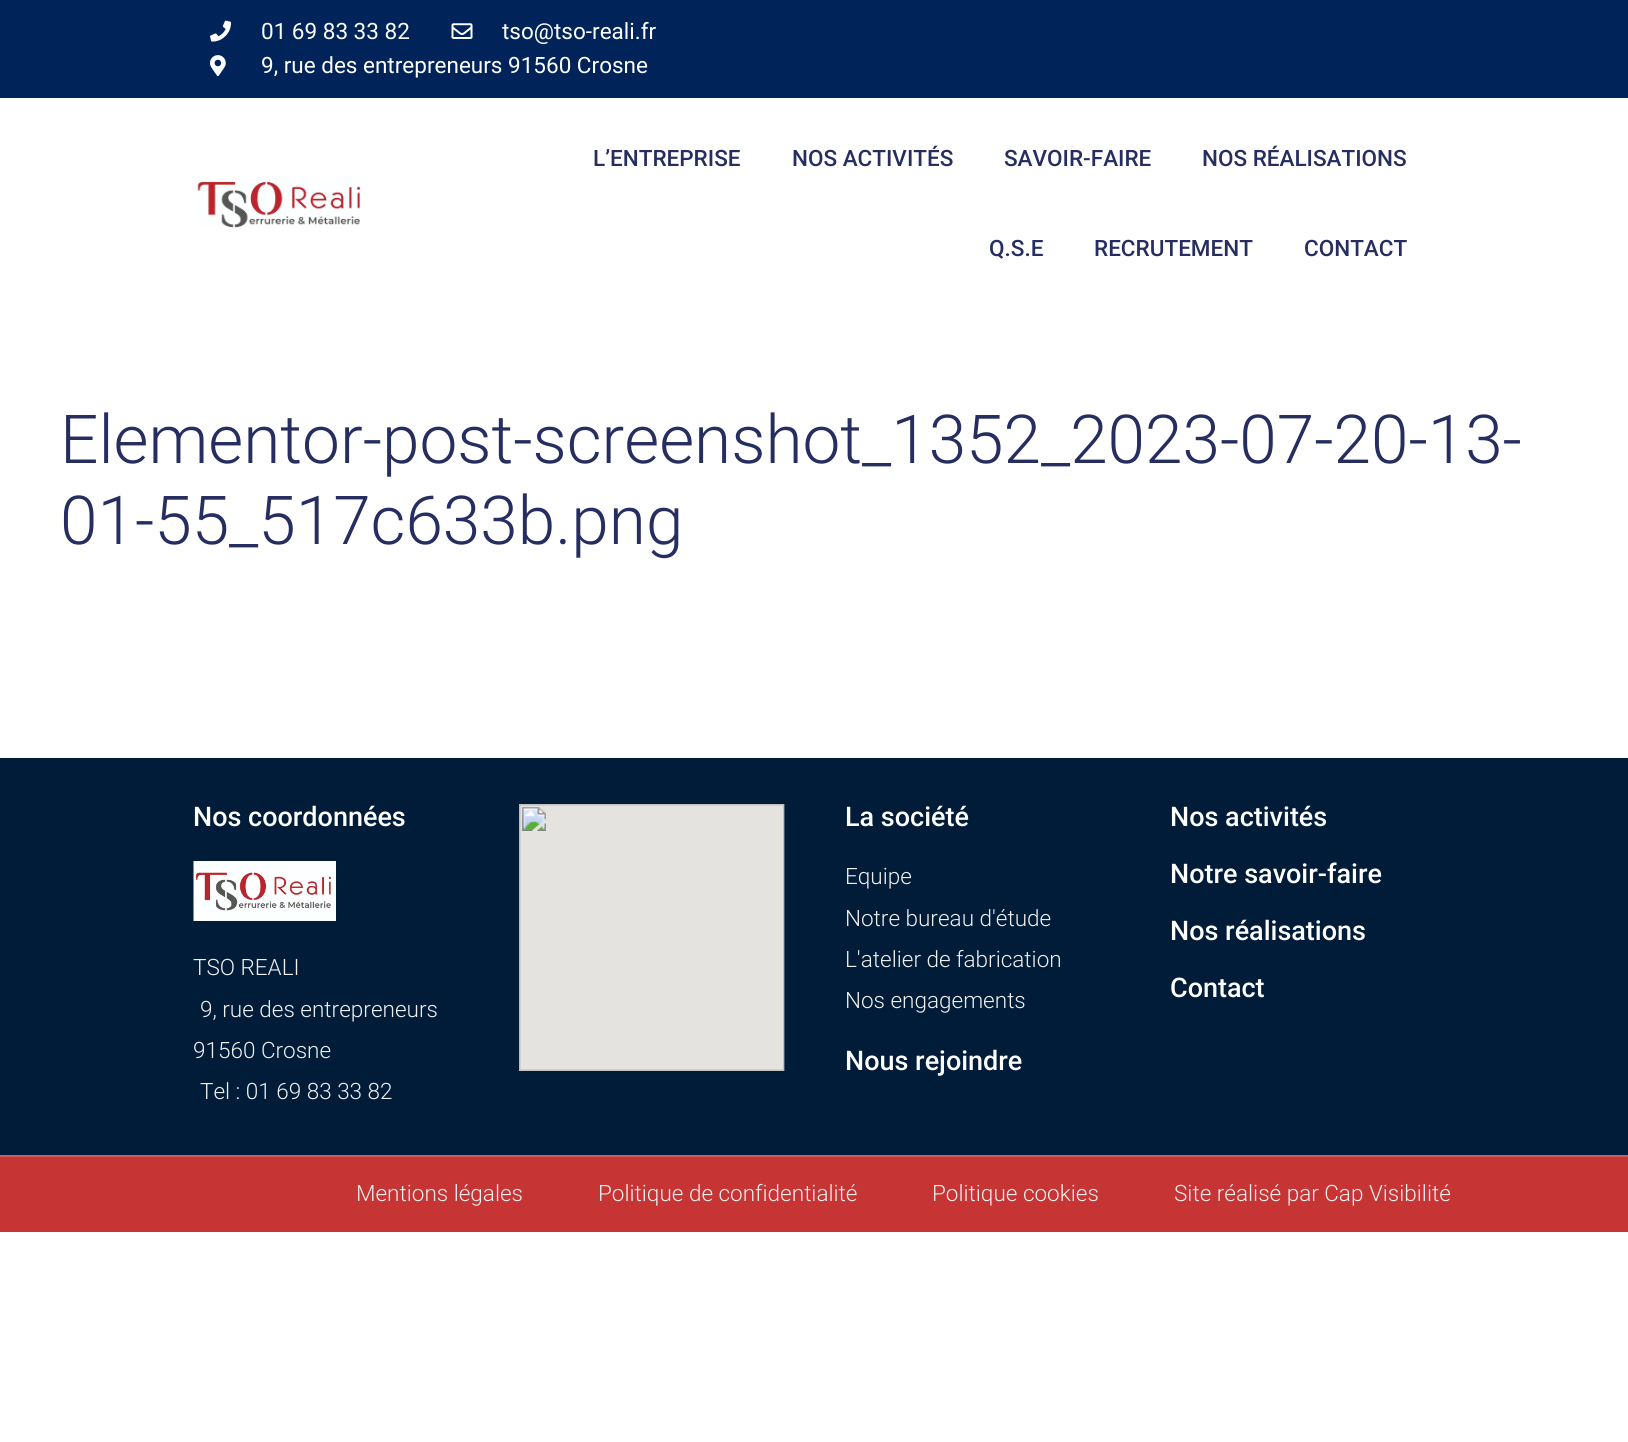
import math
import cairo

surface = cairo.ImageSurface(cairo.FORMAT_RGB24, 1628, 1442)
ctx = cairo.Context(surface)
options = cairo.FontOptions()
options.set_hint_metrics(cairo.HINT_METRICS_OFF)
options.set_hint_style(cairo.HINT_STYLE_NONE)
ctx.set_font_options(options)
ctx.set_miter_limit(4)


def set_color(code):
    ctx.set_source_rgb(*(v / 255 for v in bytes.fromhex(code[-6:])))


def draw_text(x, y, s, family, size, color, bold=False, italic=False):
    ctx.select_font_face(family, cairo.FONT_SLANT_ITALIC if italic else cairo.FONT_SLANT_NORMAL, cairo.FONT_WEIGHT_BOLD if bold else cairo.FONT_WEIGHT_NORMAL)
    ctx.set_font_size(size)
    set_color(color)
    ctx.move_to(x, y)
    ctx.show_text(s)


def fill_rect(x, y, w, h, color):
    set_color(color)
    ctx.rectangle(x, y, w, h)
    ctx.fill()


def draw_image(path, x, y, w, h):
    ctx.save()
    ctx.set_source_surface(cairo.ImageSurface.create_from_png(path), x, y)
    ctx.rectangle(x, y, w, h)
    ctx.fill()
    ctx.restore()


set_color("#ffffff")
ctx.paint()
fill_rect(0, 0, 1628, 98, "#002359")
draw_image("assets/img1.png", 210, 20, 21, 22)
draw_text(261, 39, "01 69 83 33 82", "Roboto", 22.5, "#ffffff")
draw_image("assets/img2.png", 451, 23, 22, 16)
draw_text(502, 39, "tso@tso-reali.fr", "Roboto", 22.5, "#ffffff")
draw_image("assets/img3.png", 210, 55, 16, 22)
draw_text(261, 73, "9, rue des entrepreneurs 91560 Crosne", "Roboto", 22.5, "#ffffff")
draw_image("assets/img4.png", 197, 181, 164, 47)
draw_text(593, 166, "L’ENTREPRISE", "Roboto Medium", 22.5, "#262d60")
draw_text(792, 166, "NOS ACTIVITÉS", "Roboto Medium", 22.5, "#262d60")
draw_text(1004, 166, "SAVOIR-FAIRE", "Roboto Medium", 22.5, "#262d60")
draw_text(1202, 166, "NOS RÉALISATIONS", "Roboto Medium", 22.5, "#262d60")
draw_text(989, 256, "Q.S.E", "Roboto Medium", 22.5, "#262d60")
draw_text(1094, 256, "RECRUTEMENT", "Roboto Medium", 22.5, "#262d60")
draw_text(1304, 256, "CONTACT", "Roboto Medium", 22.5, "#262d60")
draw_text(60, 463, "Elementor-post-screenshot_1352_2023-07-20-13-", "Roboto Light", 67.5, "#262d60")
draw_text(60, 544, "01-55_517c633b.png", "Roboto Light", 67.5, "#262d60")
fill_rect(0, 758, 1628, 397, "#001c38")
draw_text(193, 826, "Nos coordonnées", "Roboto Medium", 27, "#ffffff")
draw_image("assets/img5.png", 193, 861, 143, 60)
draw_text(193, 975, "TSO REALI", "Roboto Light", 22.5, "#efefef")
draw_text(200, 1017, "9, rue des entrepreneurs", "Roboto Light", 22.5, "#efefef")
draw_text(193, 1058, "91560 Crosne", "Roboto Light", 22.5, "#efefef")
draw_text(200, 1099, "Tel : 01 69 83 33 82", "Roboto Light", 22.5, "#efefef")
draw_image("assets/img6.png", 519, 804, 266, 267)
draw_text(845, 826, "La société", "Roboto Medium", 27, "#ffffff")
draw_text(845, 884, "Equipe", "Roboto Light", 22.5, "#efefef")
draw_text(845, 926, "Notre bureau d'étude", "Roboto Light", 22.5, "#efefef")
draw_text(845, 967, "L'atelier de fabrication", "Roboto Light", 22.5, "#efefef")
draw_text(845, 1008, "Nos engagements", "Roboto Light", 22.5, "#efefef")
draw_text(845, 1070, "Nous rejoindre", "Roboto Medium", 27, "#ffffff")
draw_text(1170, 826, "Nos activités", "Roboto Medium", 27, "#ffffff")
draw_text(1170, 883, "Notre savoir-faire", "Roboto Medium", 27, "#ffffff")
draw_text(1170, 940, "Nos réalisations", "Roboto Medium", 27, "#ffffff")
draw_text(1170, 997, "Contact", "Roboto Medium", 27, "#ffffff")
fill_rect(0, 1157, 1628, 75, "#c63434")
fill_rect(0, 1155, 1628, 2, "#d15b5b")
draw_text(356, 1201, "Mentions légales", "Roboto Light", 22.5, "#efefef")
draw_text(598, 1201, "Politique de confidentialité", "Roboto Light", 22.5, "#efefef")
draw_text(932, 1201, "Politique cookies", "Roboto Light", 22.5, "#efefef")
draw_text(1174, 1201, "Site réalisé par Cap Visibilité", "Roboto Light", 22.5, "#efefef")
surface.write_to_png("output.png")
